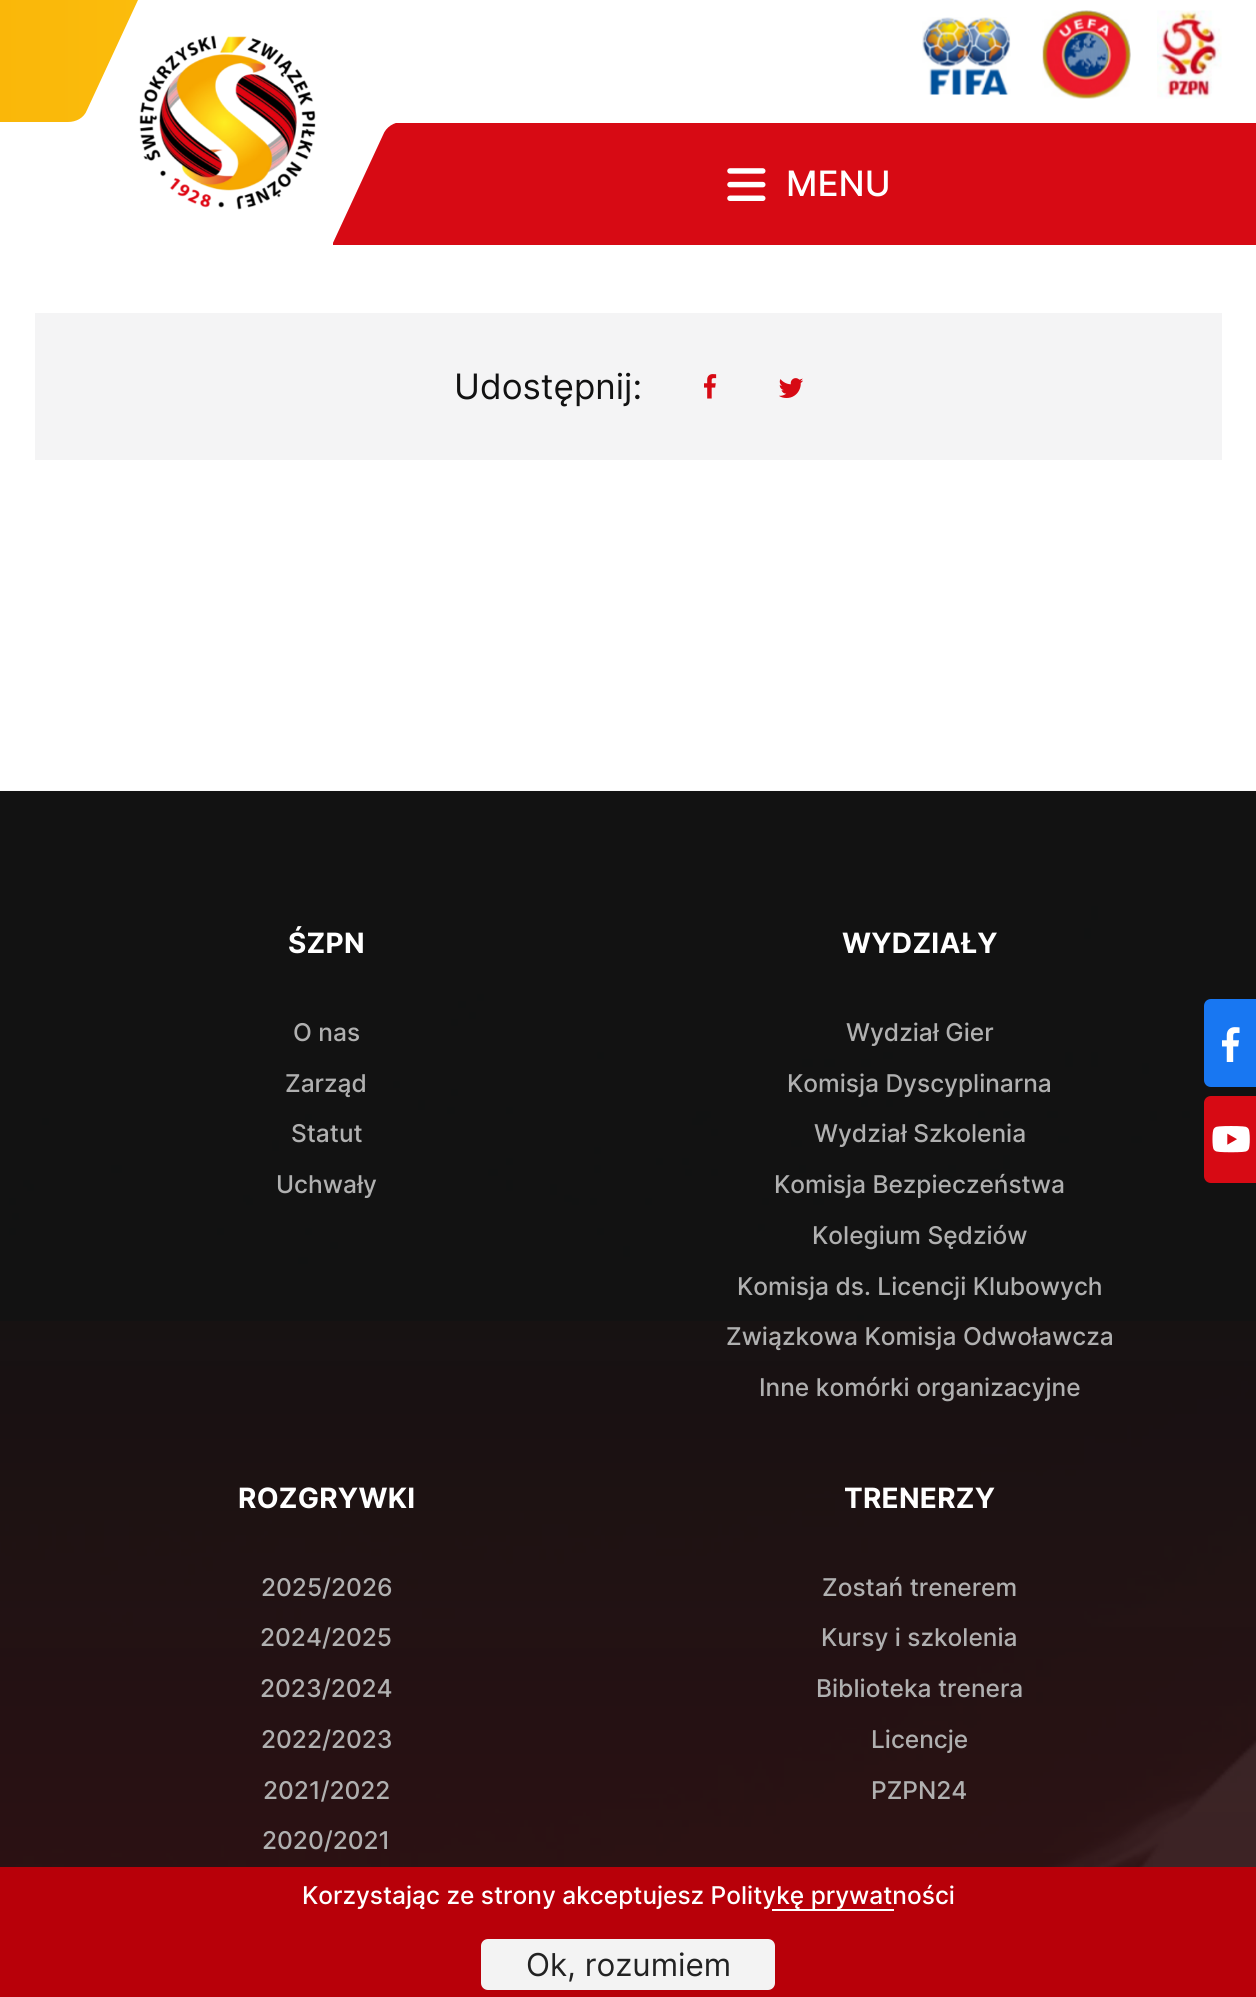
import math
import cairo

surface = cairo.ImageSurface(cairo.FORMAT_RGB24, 1256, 1997)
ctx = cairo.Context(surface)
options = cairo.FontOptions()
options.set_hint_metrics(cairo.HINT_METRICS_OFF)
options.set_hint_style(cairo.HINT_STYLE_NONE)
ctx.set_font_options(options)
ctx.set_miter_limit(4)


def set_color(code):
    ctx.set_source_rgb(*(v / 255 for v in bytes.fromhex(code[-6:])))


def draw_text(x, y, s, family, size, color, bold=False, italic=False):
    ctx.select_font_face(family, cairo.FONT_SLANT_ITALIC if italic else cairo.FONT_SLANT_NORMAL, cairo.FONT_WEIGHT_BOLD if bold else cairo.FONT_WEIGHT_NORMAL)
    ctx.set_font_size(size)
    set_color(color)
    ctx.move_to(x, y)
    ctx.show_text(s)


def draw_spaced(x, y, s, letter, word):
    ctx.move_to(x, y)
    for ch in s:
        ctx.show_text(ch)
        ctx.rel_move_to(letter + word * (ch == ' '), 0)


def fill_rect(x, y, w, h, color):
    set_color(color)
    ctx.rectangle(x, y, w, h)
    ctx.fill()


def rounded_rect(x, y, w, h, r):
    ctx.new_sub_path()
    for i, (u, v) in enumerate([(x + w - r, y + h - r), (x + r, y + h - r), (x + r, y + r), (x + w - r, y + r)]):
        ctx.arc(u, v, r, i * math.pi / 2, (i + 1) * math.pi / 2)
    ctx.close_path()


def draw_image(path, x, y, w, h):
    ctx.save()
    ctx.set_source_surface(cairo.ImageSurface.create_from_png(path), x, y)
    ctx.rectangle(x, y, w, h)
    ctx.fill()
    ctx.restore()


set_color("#ffffff")
ctx.paint()
gradient = cairo.LinearGradient(138, 0, -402, 0)
gradient.add_color_stop_rgba(0, 0.984, 0.737, 0.047, 1)
gradient.add_color_stop_rgba(1, 0.969, 0.663, 0.004, 1)
ctx.set_source(gradient)
ctx.new_path()
ctx.move_to(87, 110)
ctx.curve_to(84, 118, 76, 122, 68, 122)
ctx.line_to(-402, 122)
ctx.line_to(-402, 0)
ctx.line_to(138, 0)
ctx.close_path()
ctx.fill()
draw_image("assets/img1.png", 139, 35, 177, 175)
draw_image("assets/img2.png", 922, 17, 89, 78)
draw_image("assets/img3.png", 1042, 10, 89, 89)
draw_image("assets/img4.png", 1157, 10, 65, 89)
ctx.save()
ctx.rectangle(333, 123, 889, 122)
ctx.clip()
set_color("#d70a14")
ctx.new_path()
ctx.move_to(383, 135)
ctx.curve_to(386, 127, 394, 122, 402, 122)
ctx.line_to(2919, 122)
ctx.line_to(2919, 245)
ctx.line_to(332, 245)
ctx.close_path()
ctx.fill()
ctx.restore()
draw_image("assets/img5.png", 727, 168, 39, 33)
draw_text(786, 196, "MENU", "Inter Medium", 35, "#ffffff")
fill_rect(1222, 123, 34, 122, "#d70a14")
fill_rect(35, 313, 1187, 147, "#f4f4f5")
draw_text(454, 399, "Udostępnij:", "Inter", 35, "#121212")
draw_image("assets/img6.png", 704, 374, 13, 25)
draw_image("assets/img7.png", 779, 378, 24, 20)
fill_rect(0, 791, 1256, 1076, "#121212")
draw_image("assets/img8.png", 0, 790, 1256, 1077)
gradient = cairo.LinearGradient(628, 1208, 628, 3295)
gradient.add_color_stop_rgba(0, 0.843, 0.039, 0.078, 0)
gradient.add_color_stop_rgba(1, 0.843, 0.039, 0.078, 0.4)
ctx.set_source(gradient)
ctx.rectangle(0, 1321, 1256, 546)
ctx.fill()
ctx.select_font_face("Inter", cairo.FONT_SLANT_NORMAL, cairo.FONT_WEIGHT_BOLD)
ctx.set_font_size(28)
set_color("#ffffff")
draw_spaced(288, 953, "ŚZPN", 0.25, 0)
draw_text(293, 1041, "O nas", "Inter Medium", 24.5, "#b0b0b0")
draw_text(285, 1092, "Zarząd", "Inter Medium", 24.5, "#b0b0b0")
draw_text(291, 1142, "Statut", "Inter Medium", 24.5, "#b0b0b0")
draw_text(276, 1193, "Uchwały", "Inter Medium", 24.5, "#b0b0b0")
ctx.select_font_face("Inter", cairo.FONT_SLANT_NORMAL, cairo.FONT_WEIGHT_BOLD)
ctx.set_font_size(28)
set_color("#ffffff")
draw_spaced(842, 953, "WYDZIAŁY", 0.25, 0)
draw_text(846, 1041, "Wydział Gier", "Inter Medium", 24.5, "#b0b0b0")
draw_text(787, 1092, "Komisja Dyscyplinarna", "Inter Medium", 24.5, "#b0b0b0")
draw_text(814, 1142, "Wydział Szkolenia", "Inter Medium", 24.5, "#b0b0b0")
draw_text(774, 1193, "Komisja Bezpieczeństwa", "Inter Medium", 24.5, "#b0b0b0")
draw_text(812, 1244, "Kolegium Sędziów", "Inter Medium", 24.5, "#b0b0b0")
draw_text(737, 1295, "Komisja ds. Licencji Klubowych", "Inter Medium", 24.5, "#b0b0b0")
draw_text(726, 1345, "Związkowa Komisja Odwoławcza", "Inter Medium", 24.5, "#b0b0b0")
draw_text(759, 1396, "Inne komórki organizacyjne", "Inter Medium", 24.5, "#b0b0b0")
ctx.select_font_face("Inter", cairo.FONT_SLANT_NORMAL, cairo.FONT_WEIGHT_BOLD)
ctx.set_font_size(28)
set_color("#ffffff")
draw_spaced(238, 1508, "ROZGRYWKI", 0.25, 0)
draw_text(261, 1596, "2025/2026", "Inter Medium", 24.5, "#b0b0b0")
draw_text(260, 1646, "2024/2025", "Inter Medium", 24.5, "#b0b0b0")
draw_text(260, 1697, "2023/2024", "Inter Medium", 24.5, "#b0b0b0")
draw_text(261, 1748, "2022/2023", "Inter Medium", 24.5, "#b0b0b0")
draw_text(263, 1799, "2021/2022", "Inter Medium", 24.5, "#b0b0b0")
draw_text(262, 1849, "2020/2021", "Inter Medium", 24.5, "#b0b0b0")
ctx.select_font_face("Inter", cairo.FONT_SLANT_NORMAL, cairo.FONT_WEIGHT_BOLD)
ctx.set_font_size(28)
set_color("#ffffff")
draw_spaced(844, 1508, "TRENERZY", 0.25, 0)
draw_text(822, 1596, "Zostań trenerem", "Inter Medium", 24.5, "#b0b0b0")
draw_text(821, 1646, "Kursy i szkolenia", "Inter Medium", 24.5, "#b0b0b0")
draw_text(816, 1697, "Biblioteka trenera", "Inter Medium", 24.5, "#b0b0b0")
draw_text(871, 1748, "Licencje", "Inter Medium", 24.5, "#b0b0b0")
draw_text(871, 1799, "PZPN24", "Inter Medium", 24.5, "#b0b0b0")
set_color("#1877f2")
ctx.new_path()
ctx.move_to(1211, 999)
ctx.line_to(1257, 999)
ctx.line_to(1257, 1087)
ctx.line_to(1211, 1087)
ctx.curve_to(1207, 1087, 1204, 1084, 1204, 1080)
ctx.line_to(1204, 1006)
ctx.curve_to(1204, 1002, 1207, 999, 1211, 999)
ctx.close_path()
ctx.fill()
draw_image("assets/img9.png", 1222, 1027, 18, 35)
set_color("#d70a14")
ctx.new_path()
ctx.move_to(1211, 1096)
ctx.line_to(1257, 1096)
ctx.line_to(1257, 1183)
ctx.line_to(1211, 1183)
ctx.curve_to(1207, 1183, 1204, 1180, 1204, 1176)
ctx.line_to(1204, 1103)
ctx.curve_to(1204, 1099, 1207, 1096, 1211, 1096)
ctx.close_path()
ctx.fill()
draw_image("assets/img10.png", 1212, 1126, 38, 27)
fill_rect(0, 1867, 1256, 130, "#b80009")
draw_text(302, 1904, "Korzystając ze strony akceptujesz Politykę prywatności", "Inter Medium", 24.5, "#ffffff")
fill_rect(772, 1909, 122, 2, "#ffffff")
set_color("#f3f3f3")
rounded_rect(481, 1939, 294, 51, 7)
ctx.fill()
draw_text(526, 1976, "Ok, rozumiem", "Inter", 31.5, "#222222")
surface.write_to_png("output.png")
